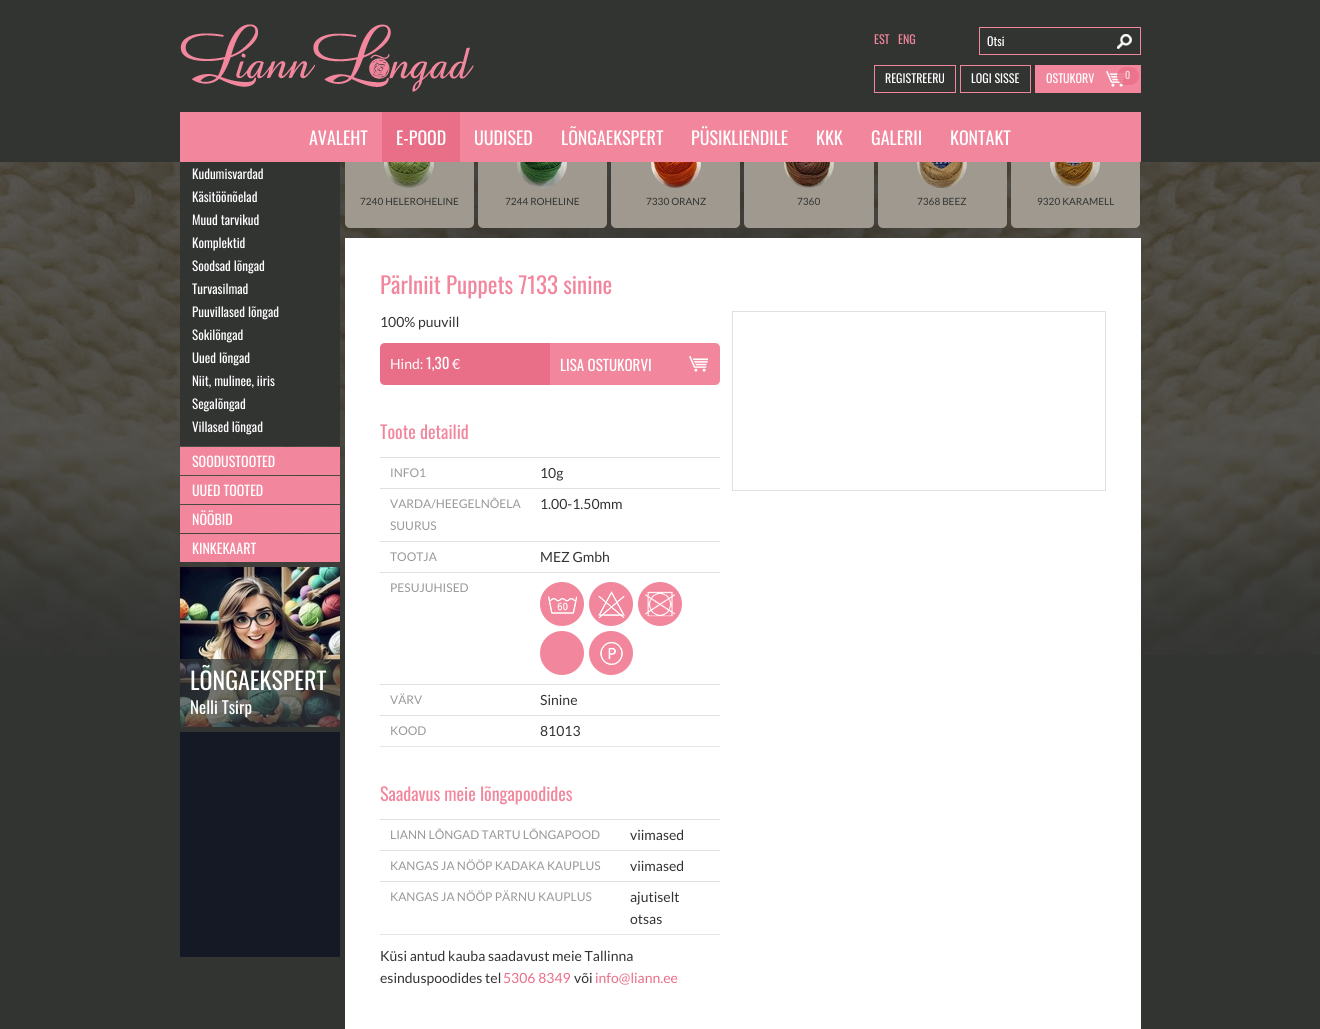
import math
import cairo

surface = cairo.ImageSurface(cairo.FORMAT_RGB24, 1320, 1029)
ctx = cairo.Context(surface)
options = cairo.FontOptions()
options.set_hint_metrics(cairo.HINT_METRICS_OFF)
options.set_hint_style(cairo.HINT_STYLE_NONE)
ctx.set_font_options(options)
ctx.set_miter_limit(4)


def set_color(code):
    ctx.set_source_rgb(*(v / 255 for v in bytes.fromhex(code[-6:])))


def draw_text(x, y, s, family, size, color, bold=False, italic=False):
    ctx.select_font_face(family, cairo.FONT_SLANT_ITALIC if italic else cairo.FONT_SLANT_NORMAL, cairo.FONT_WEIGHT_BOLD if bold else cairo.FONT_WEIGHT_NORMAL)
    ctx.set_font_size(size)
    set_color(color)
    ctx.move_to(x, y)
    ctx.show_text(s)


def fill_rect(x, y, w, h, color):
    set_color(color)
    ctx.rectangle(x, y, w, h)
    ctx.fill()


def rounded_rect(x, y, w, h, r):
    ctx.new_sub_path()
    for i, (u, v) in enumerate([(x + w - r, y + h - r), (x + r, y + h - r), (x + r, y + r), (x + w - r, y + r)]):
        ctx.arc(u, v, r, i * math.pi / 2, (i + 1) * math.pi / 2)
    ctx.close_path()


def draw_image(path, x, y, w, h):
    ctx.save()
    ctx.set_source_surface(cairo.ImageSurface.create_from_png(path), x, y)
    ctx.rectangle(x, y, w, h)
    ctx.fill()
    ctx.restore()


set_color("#323432")
ctx.paint()
draw_image("assets/img4.png", 0, 162, 1320, 493)
set_color("#9f998f")
rounded_rect(345, 158, 129, 70, 5)
ctx.fill()
rounded_rect(478, 158, 129, 70, 5)
ctx.fill()
rounded_rect(611, 158, 129, 70, 5)
ctx.fill()
rounded_rect(744, 158, 130, 70, 5)
ctx.fill()
rounded_rect(878, 158, 129, 70, 5)
ctx.fill()
rounded_rect(1011, 158, 129, 70, 5)
ctx.fill()
fill_rect(345, 158, 795, 4, "#323432")
draw_image("assets/img1.png", 180, 24, 294, 68)
draw_text(874, 44, "EST", "Oswald", 12, "#f2869d")
draw_text(898, 44, "ENG", "Oswald", 12, "#f2869d")
ctx.rectangle(979.5, 27.5, 161, 27)
ctx.set_line_width(1)
ctx.stroke()
draw_text(987, 46, "Otsi", "Oswald", 12, "#ffffff")
draw_image("assets/img2.png", 1117, 34, 15, 15)
ctx.rectangle(874.5, 65.5, 81, 27)
set_color("#f2869d")
ctx.stroke()
draw_text(885, 83, "REGISTREERU", "Oswald", 12, "#ffffff")
ctx.rectangle(960.5, 65.5, 70, 27)
set_color("#f2869d")
ctx.stroke()
draw_text(971, 83, "LOGI SISSE", "Oswald", 12, "#ffffff")
fill_rect(1035, 65, 106, 28, "#f2869d")
draw_image("assets/img3.png", 1106, 71, 19, 16)
draw_text(1046, 83, "OSTUKORV", "Oswald", 12, "#ffffff")
ctx.set_source_rgba(0.914, 0.435, 0.537, 0.8)
rounded_rect(1117, 67, 22, 18, 9)
ctx.fill()
draw_text(1125, 79, "0", "Oswald", 10, "#fce7eb")
fill_rect(180, 112, 961, 50, "#f2869d")
draw_text(309, 145, "AVALEHT", "Oswald", 18, "#ffffff")
fill_rect(382, 112, 78, 50, "#e96f89")
draw_text(396, 145, "E-POOD", "Oswald", 18, "#ffffff")
draw_text(474, 145, "UUDISED", "Oswald", 18, "#ffffff")
draw_text(561, 145, "LÕNGAEKSPERT", "Oswald", 18, "#ffffff")
draw_text(691, 145, "PÜSIKLIENDILE", "Oswald", 18, "#ffffff")
draw_text(816, 145, "KKK", "Oswald", 18, "#ffffff")
draw_text(871, 145, "GALERII", "Oswald", 18, "#ffffff")
draw_text(950, 145, "KONTAKT", "Oswald", 18, "#ffffff")
fill_rect(180, 162, 160, 284, "#323432")
draw_text(192, 179, "Kudumisvardad", "Oswald", 13, "#ffffff")
draw_text(192, 202, "Käsitöönõelad", "Oswald", 13, "#ffffff")
draw_text(192, 225, "Muud tarvikud", "Oswald", 13, "#ffffff")
draw_text(192, 248, "Komplektid", "Oswald", 13, "#ffffff")
draw_text(192, 271, "Soodsad lõngad", "Oswald", 13, "#ffffff")
draw_text(192, 294, "Turvasilmad", "Oswald", 13, "#ffffff")
draw_text(192, 317, "Puuvillased lõngad", "Oswald", 13, "#ffffff")
draw_text(192, 340, "Sokilõngad", "Oswald", 13, "#ffffff")
draw_text(192, 363, "Uued lõngad", "Oswald", 13, "#ffffff")
draw_text(192, 386, "Niit, mulinee, iiris", "Oswald", 13, "#ffffff")
draw_text(192, 409, "Segalõngad", "Oswald", 13, "#ffffff")
draw_text(192, 432, "Villased lõngad", "Oswald", 13, "#ffffff")
fill_rect(180, 447, 160, 28, "#f2869d")
draw_text(192, 467, "SOODUSTOOTED", "Oswald", 14, "#ffffff")
fill_rect(180, 476, 160, 28, "#f2869d")
draw_text(192, 496, "UUED TOOTED", "Oswald", 14, "#ffffff")
fill_rect(180, 505, 160, 28, "#f2869d")
draw_text(192, 525, "NÖÖBID", "Oswald", 14, "#ffffff")
fill_rect(180, 534, 160, 28, "#f2869d")
draw_text(192, 554, "KINKEKAART", "Oswald", 14, "#ffffff")
draw_image("assets/img5.png", 180, 567, 160, 160)
ctx.set_source_rgba(0.196, 0.204, 0.196, 0.68)
ctx.rectangle(180, 659, 160, 68)
ctx.fill()
draw_text(190, 690, "LÕNGAEKSPERT", "Oswald", 24, "#ffffff")
draw_text(190, 714, "Nelli Tsirp", "Oswald", 17, "#ffffff")
fill_rect(180, 732, 160, 225, "#151925")
draw_image("assets/img6.png", 384, 162, 50, 26)
draw_text(360, 205, "7240 HELEROHELINE", "Lato", 10, "#323432")
draw_image("assets/img7.png", 517, 162, 50, 26)
draw_text(505, 205, "7244 ROHELINE", "Lato", 10, "#323432")
draw_image("assets/img8.png", 651, 162, 50, 26)
draw_text(646, 205, "7330 ORANZ", "Lato", 10, "#323432")
draw_image("assets/img9.png", 784, 162, 50, 26)
draw_text(797, 205, "7360", "Lato", 10, "#323432")
draw_image("assets/img10.png", 917, 162, 50, 26)
draw_text(917, 205, "7368 BEEZ", "Lato", 10, "#323432")
draw_image("assets/img11.png", 1050, 162, 50, 26)
draw_text(1037, 205, "9320 KARAMELL", "Lato", 10, "#323432")
fill_rect(345, 238, 796, 791, "#ffffff")
draw_text(380, 294, "Pärlniit Puppets 7133 sinine", "Oswald", 23, "#f2869d")
draw_text(380, 327, "100% puuvill", "Lato", 14, "#323432")
set_color("#e96f89")
ctx.new_path()
ctx.move_to(385, 343)
ctx.line_to(550, 343)
ctx.line_to(550, 385)
ctx.line_to(385, 385)
ctx.curve_to(382, 385, 380, 383, 380, 380)
ctx.line_to(380, 348)
ctx.curve_to(380, 345, 382, 343, 385, 343)
ctx.close_path()
ctx.fill()
draw_text(390, 369, "Hind:", "Lato", 14, "#ffffff")
draw_text(426, 369, "1,30", "Oswald", 15, "#ffffff")
draw_text(452, 369, "€", "Lato", 14, "#ffffff")
set_color("#f2869d")
ctx.new_path()
ctx.move_to(550, 343)
ctx.line_to(715, 343)
ctx.curve_to(718, 343, 720, 345, 720, 348)
ctx.line_to(720, 380)
ctx.curve_to(720, 383, 718, 385, 715, 385)
ctx.line_to(550, 385)
ctx.close_path()
ctx.fill()
draw_image("assets/img3.png", 689, 356, 19, 16)
draw_text(560, 371, "LISA OSTUKORVI", "Oswald", 15, "#ffffff")
ctx.rectangle(732.5, 311.5, 373, 179)
set_color("#e0e0e0")
ctx.stroke()
draw_text(380, 439, "Toote detailid", "Oswald", 18, "#f2869d")
fill_rect(380, 746, 340, 1, "#e5e5e5")
draw_text(390, 477, "INFO1", "Lato", 12, "#999999")
fill_rect(380, 457, 340, 1, "#e0e0e0")
draw_text(540, 478, "10g", "Lato", 14, "#323432")
draw_text(390, 508, "VARDA/HEEGELNÕELA", "Lato", 12, "#999999")
draw_text(390, 530, "SUURUS", "Lato", 12, "#999999")
fill_rect(380, 488, 340, 1, "#e0e0e0")
draw_text(540, 509, "1.00-1.50mm", "Lato", 14, "#323432")
draw_text(390, 561, "TOOTJA", "Lato", 12, "#999999")
fill_rect(380, 541, 340, 1, "#e0e0e0")
draw_text(540, 562, "MEZ Gmbh", "Lato", 14, "#323432")
fill_rect(380, 572, 340, 1, "#e0e0e0")
set_color("#f2869d")
ctx.new_path()
ctx.arc(562, 604, 22, 0, 2 * math.pi)
ctx.fill()
draw_image("assets/img12.png", 548, 596, 29, 18)
ctx.arc(611, 604, 22, 0, 2 * math.pi)
ctx.fill()
draw_image("assets/img13.png", 598, 591, 27, 27)
ctx.arc(660, 604, 22, 0, 2 * math.pi)
ctx.fill()
draw_image("assets/img14.png", 645, 591, 30, 26)
ctx.arc(562, 653, 22, 0, 2 * math.pi)
ctx.fill()
ctx.arc(611, 653, 22, 0, 2 * math.pi)
ctx.fill()
draw_image("assets/img15.png", 600, 642, 23, 23)
draw_text(390, 592, "PESUJUHISED", "Lato", 12, "#999999")
draw_text(390, 704, "VÄRV", "Lato", 12, "#999999")
fill_rect(380, 684, 340, 1, "#e0e0e0")
draw_text(540, 705, "Sinine", "Lato", 14, "#323432")
draw_text(390, 735, "KOOD", "Lato", 12, "#999999")
fill_rect(380, 715, 340, 1, "#e0e0e0")
draw_text(540, 736, "81013", "Lato", 14, "#323432")
draw_text(380, 801, "Saadavus meie lõngapoodides", "Oswald", 18, "#f2869d")
fill_rect(380, 934, 340, 1, "#e5e5e5")
draw_text(390, 839, "LIANN LÕNGAD TARTU LÕNGAPOOD", "Lato", 12, "#999999")
fill_rect(380, 819, 340, 1, "#e0e0e0")
draw_text(630, 840, "viimased", "Lato", 14, "#323432")
draw_text(390, 870, "KANGAS JA NÖÖP KADAKA KAUPLUS", "Lato", 12, "#999999")
fill_rect(380, 850, 340, 1, "#e0e0e0")
draw_text(630, 871, "viimased", "Lato", 14, "#323432")
draw_text(390, 901, "KANGAS JA NÖÖP PÄRNU KAUPLUS", "Lato", 12, "#999999")
fill_rect(380, 881, 340, 1, "#e0e0e0")
draw_text(630, 902, "ajutiselt", "Lato", 14, "#323432")
draw_text(630, 924, "otsas", "Lato", 14, "#323432")
draw_text(380, 961, "Küsi antud kauba saadavust meie Tallinna", "Lato", 14, "#323432")
draw_text(380, 983, "esinduspoodides tel", "Lato", 14, "#323432")
draw_text(503, 983, "5306 8349", "Lato", 14, "#e96f89")
draw_text(574, 983, "või", "Lato", 14, "#323432")
draw_text(595, 983, "info@liann.ee", "Lato", 14, "#e96f89")
surface.write_to_png("output.png")
